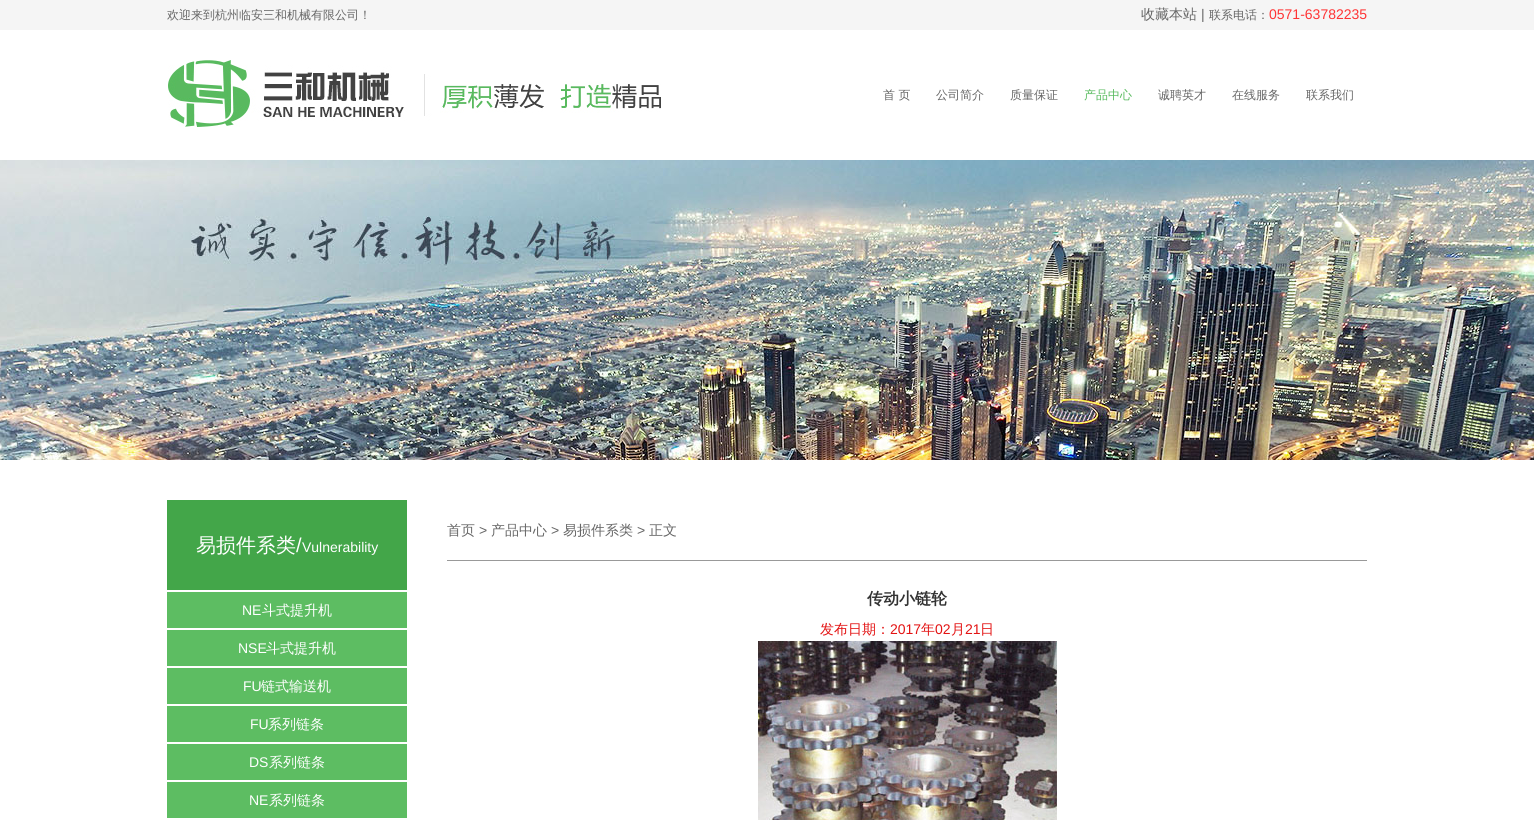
import math
import cairo

surface = cairo.ImageSurface(cairo.FORMAT_RGB24, 1534, 820)
ctx = cairo.Context(surface)
options = cairo.FontOptions()
options.set_hint_metrics(cairo.HINT_METRICS_OFF)
options.set_hint_style(cairo.HINT_STYLE_NONE)
ctx.set_font_options(options)
ctx.set_miter_limit(4)


def set_color(code):
    ctx.set_source_rgb(*(v / 255 for v in bytes.fromhex(code[-6:])))


def draw_text(x, y, s, family, size, color, bold=False, italic=False):
    ctx.select_font_face(family, cairo.FONT_SLANT_ITALIC if italic else cairo.FONT_SLANT_NORMAL, cairo.FONT_WEIGHT_BOLD if bold else cairo.FONT_WEIGHT_NORMAL)
    ctx.set_font_size(size)
    set_color(color)
    ctx.move_to(x, y)
    ctx.show_text(s)


def fill_rect(x, y, w, h, color):
    set_color(color)
    ctx.rectangle(x, y, w, h)
    ctx.fill()


def draw_image(path, x, y, w, h):
    ctx.save()
    ctx.set_source_surface(cairo.ImageSurface.create_from_png(path), x, y)
    ctx.rectangle(x, y, w, h)
    ctx.fill()
    ctx.restore()


set_color("#ffffff")
ctx.paint()
fill_rect(0, 0, 1534, 30, "#f5f5f5")
draw_text(167, 19, "欢迎来到杭州临安三和机械有限公司！", "WenQuanYi Zen Hei Medium", 12, "#666666")
draw_text(1141, 19, "收藏本站", "WenQuanYi Zen Hei Medium", 14, "#666666")
draw_text(1201, 19, "|", "Liberation Sans", 14, "#666666")
draw_text(1209, 19, "联系电话：", "WenQuanYi Zen Hei Medium", 12, "#666666")
draw_text(1269, 19, "0571-63782235", "Liberation Sans", 14, "#ff3435")
draw_image("assets/img1.png", 168, 60, 493, 67)
draw_text(883, 99, "首 页", "WenQuanYi Zen Hei Medium", 12, "#666666")
draw_text(936, 99, "公司简介", "WenQuanYi Zen Hei Medium", 12, "#666666")
draw_text(1010, 99, "质量保证", "WenQuanYi Zen Hei Medium", 12, "#666666")
draw_text(1084, 99, "产品中心", "WenQuanYi Zen Hei Medium", 12, "#57ba5d")
draw_text(1158, 99, "诚聘英才", "WenQuanYi Zen Hei Medium", 12, "#666666")
draw_text(1232, 99, "在线服务", "WenQuanYi Zen Hei Medium", 12, "#666666")
draw_text(1306, 99, "联系我们", "WenQuanYi Zen Hei Medium", 12, "#666666")
draw_image("assets/img2.png", 0, 160, 1534, 300)
fill_rect(167, 500, 240, 90, "#43a649")
draw_text(196, 552, "易损件系类", "WenQuanYi Zen Hei Medium", 20, "#ffffff")
draw_text(296, 552, "/", "Liberation Sans", 20, "#ffffff")
draw_text(302, 552, "Vulnerability", "Liberation Sans", 14, "#ffffff")
fill_rect(167, 592, 240, 36, "#5dbd62")
draw_text(242, 615, "NE", "Liberation Sans", 14, "#ffffff")
draw_text(262, 615, "斗式提升机", "WenQuanYi Zen Hei Medium", 14, "#ffffff")
fill_rect(167, 630, 240, 36, "#5dbd62")
draw_text(238, 653, "NSE", "Liberation Sans", 14, "#ffffff")
draw_text(266, 653, "斗式提升机", "WenQuanYi Zen Hei Medium", 14, "#ffffff")
fill_rect(167, 668, 240, 36, "#5dbd62")
draw_text(243, 691, "FU", "Liberation Sans", 14, "#ffffff")
draw_text(261, 691, "链式输送机", "WenQuanYi Zen Hei Medium", 14, "#ffffff")
fill_rect(167, 706, 240, 36, "#5dbd62")
draw_text(250, 729, "FU", "Liberation Sans", 14, "#ffffff")
draw_text(268, 729, "系列链条", "WenQuanYi Zen Hei Medium", 14, "#ffffff")
fill_rect(167, 744, 240, 36, "#5dbd62")
draw_text(249, 767, "DS", "Liberation Sans", 14, "#ffffff")
draw_text(269, 767, "系列链条", "WenQuanYi Zen Hei Medium", 14, "#ffffff")
fill_rect(167, 782, 240, 36, "#5dbd62")
draw_text(249, 805, "NE", "Liberation Sans", 14, "#ffffff")
draw_text(269, 805, "系列链条", "WenQuanYi Zen Hei Medium", 14, "#ffffff")
fill_rect(447, 560, 920, 1, "#999999")
draw_text(447, 535, "首页", "WenQuanYi Zen Hei Medium", 14, "#666666")
draw_text(479, 535, ">", "Liberation Sans", 14, "#666666")
draw_text(491, 535, "产品中心", "WenQuanYi Zen Hei Medium", 14, "#666666")
draw_text(551, 535, ">", "Liberation Sans", 14, "#666666")
draw_text(563, 535, "易损件系类", "WenQuanYi Zen Hei Medium", 14, "#666666")
draw_text(637, 535, ">", "Liberation Sans", 14, "#666666")
draw_text(649, 535, "正文", "WenQuanYi Zen Hei Medium", 14, "#666666")
draw_text(867, 604, "传动小链轮", "WenQuanYi Zen Hei", 16, "#333333", bold=True)
draw_text(820, 634, "发布日期：", "WenQuanYi Zen Hei Medium", 14, "#e31313")
draw_text(890, 634, "2017", "Liberation Sans", 14, "#e31313")
draw_text(921, 634, "年", "WenQuanYi Zen Hei Medium", 14, "#e31313")
draw_text(935, 634, "02", "Liberation Sans", 14, "#e31313")
draw_text(951, 634, "月", "WenQuanYi Zen Hei Medium", 14, "#e31313")
draw_text(965, 634, "21", "Liberation Sans", 14, "#e31313")
draw_text(980, 634, "日", "WenQuanYi Zen Hei Medium", 14, "#e31313")
draw_image("assets/img3.png", 758, 641, 299, 179)
surface.write_to_png("output.png")
